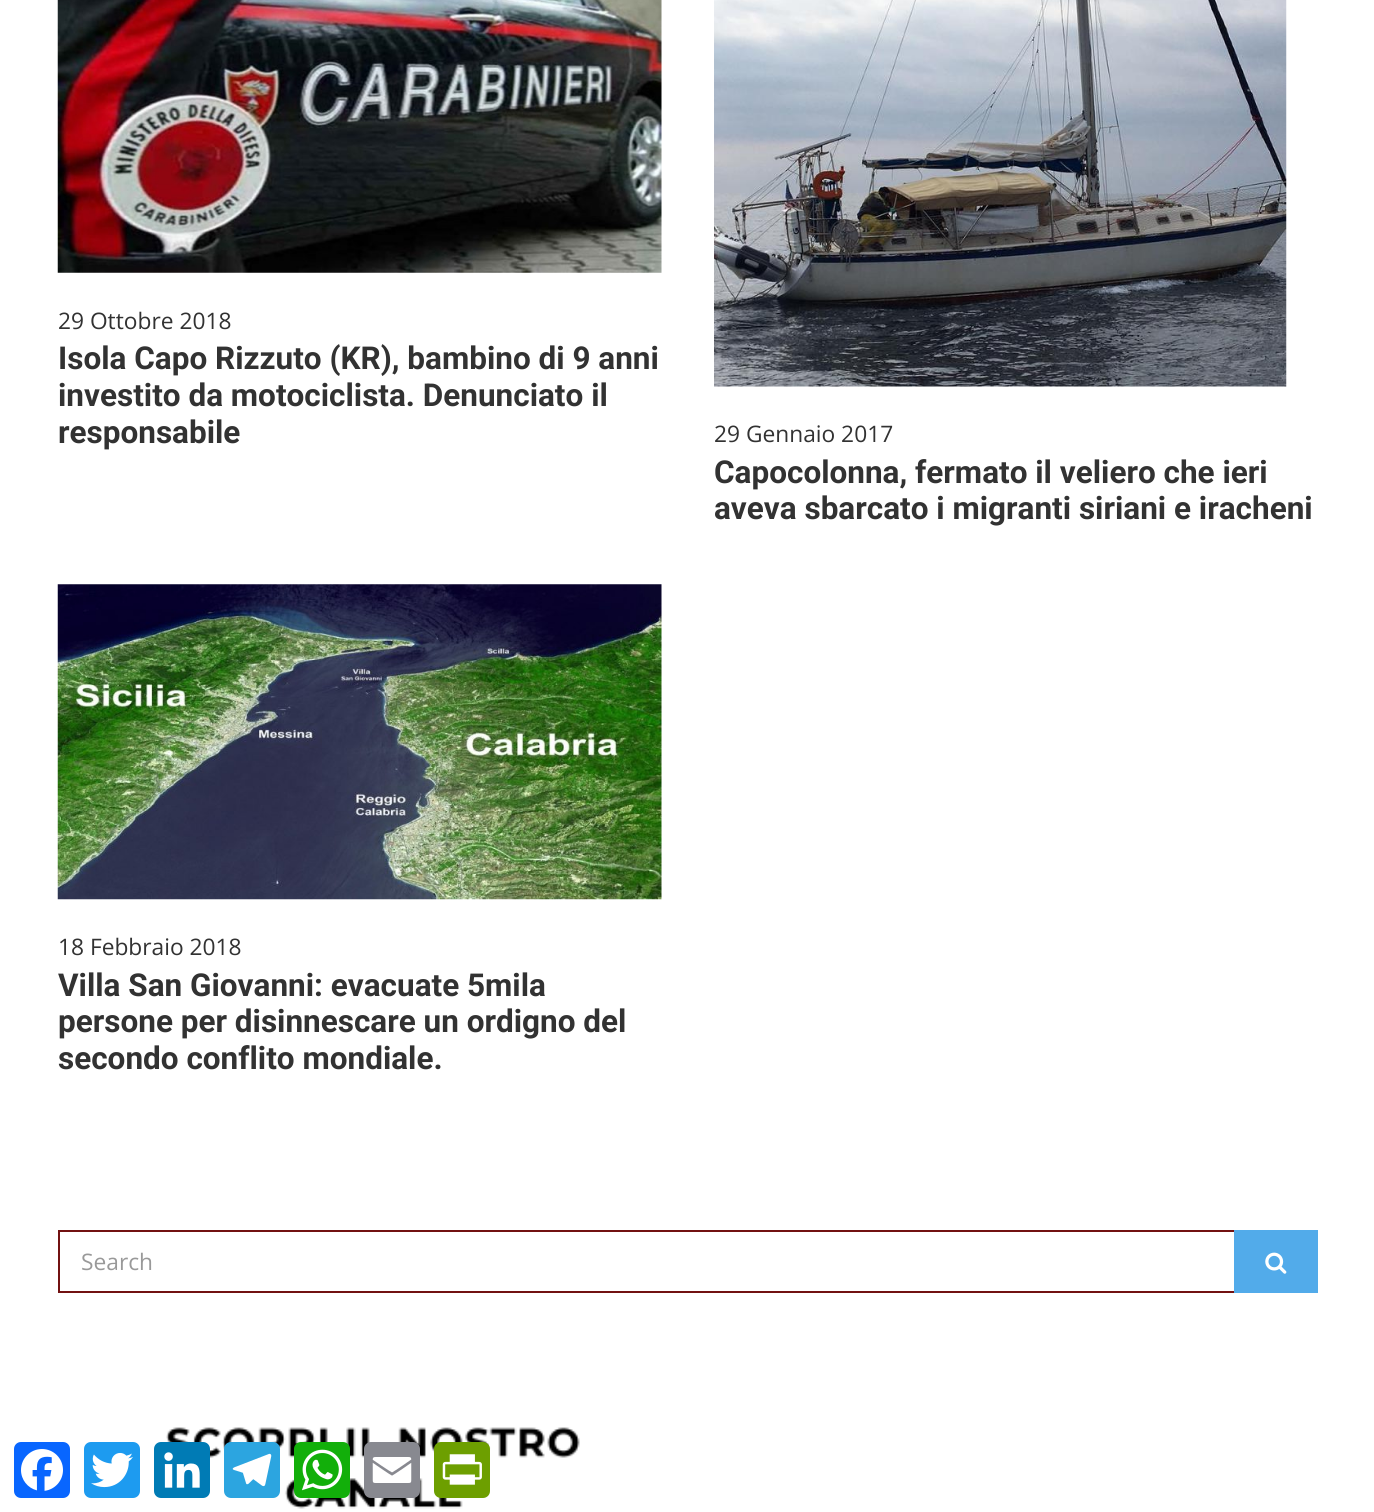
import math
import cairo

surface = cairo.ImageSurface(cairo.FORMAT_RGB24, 1374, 1512)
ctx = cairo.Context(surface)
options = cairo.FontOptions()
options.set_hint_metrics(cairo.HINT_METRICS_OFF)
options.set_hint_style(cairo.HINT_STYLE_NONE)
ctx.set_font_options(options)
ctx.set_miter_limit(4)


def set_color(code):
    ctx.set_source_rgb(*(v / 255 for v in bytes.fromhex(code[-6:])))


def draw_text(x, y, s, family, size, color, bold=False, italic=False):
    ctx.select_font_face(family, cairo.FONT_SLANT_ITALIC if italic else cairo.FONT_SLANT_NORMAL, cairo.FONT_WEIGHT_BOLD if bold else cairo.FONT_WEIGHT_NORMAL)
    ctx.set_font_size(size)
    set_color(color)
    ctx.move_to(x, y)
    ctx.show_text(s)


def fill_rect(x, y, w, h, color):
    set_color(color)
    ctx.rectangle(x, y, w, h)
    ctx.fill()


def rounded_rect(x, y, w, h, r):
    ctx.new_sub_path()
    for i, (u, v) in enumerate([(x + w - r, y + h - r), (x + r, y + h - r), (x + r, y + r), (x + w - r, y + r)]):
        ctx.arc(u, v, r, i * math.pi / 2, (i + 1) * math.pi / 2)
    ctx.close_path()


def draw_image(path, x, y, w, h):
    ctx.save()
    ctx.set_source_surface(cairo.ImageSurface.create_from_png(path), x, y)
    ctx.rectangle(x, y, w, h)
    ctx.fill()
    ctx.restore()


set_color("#ffffff")
ctx.paint()
draw_image("assets/img1.png", 57, 0, 605, 273)
draw_text(58, 329, "29 Ottobre 2018", "Open Sans", 22.75, "#323232")
draw_text(58, 369, "Isola Capo Rizzuto (KR), bambino di 9 anni", "Roboto", 31.5, "#323232", bold=True)
draw_text(58, 406, "investito da motociclista. Denunciato il", "Roboto", 31.5, "#323232", bold=True)
draw_text(58, 443, "responsabile", "Roboto", 31.5, "#323232", bold=True)
draw_image("assets/img2.png", 714, 0, 573, 387)
draw_text(714, 442, "29 Gennaio 2017", "Open Sans", 22.75, "#323232")
draw_text(714, 483, "Capocolonna, fermato il veliero che ieri", "Roboto", 31.5, "#323232", bold=True)
draw_text(714, 519, "aveva sbarcato i migranti siriani e iracheni", "Roboto", 31.5, "#323232", bold=True)
draw_image("assets/img3.png", 57, 584, 605, 316)
draw_text(58, 955, "18 Febbraio 2018", "Open Sans", 22.75, "#323232")
draw_text(58, 996, "Villa San Giovanni: evacuate 5mila", "Roboto", 31.5, "#323232", bold=True)
draw_text(58, 1032, "persone per disinnescare un ordigno del", "Roboto", 31.5, "#323232", bold=True)
draw_text(58, 1069, "secondo conflito mondiale.", "Roboto", 31.5, "#323232", bold=True)
ctx.rectangle(59, 1231, 1258, 61)
set_color("#721111")
ctx.stroke()
draw_text(81, 1270, "Search", "Open Sans", 22.75, "#999999")
fill_rect(1234, 1230, 84, 63, "#52abea")
draw_image("assets/img4.png", 1265, 1252, 22, 22)
draw_image("assets/img5.png", 166, 1427, 414, 82)
set_color("#0866ff")
rounded_rect(14, 1442, 56, 56, 7)
ctx.fill()
draw_image("assets/img6.png", 21, 1449, 42, 42)
set_color("#1d9bf0")
rounded_rect(84, 1442, 56, 56, 7)
ctx.fill()
draw_image("assets/img7.png", 91, 1452, 42, 36)
set_color("#007bb5")
rounded_rect(154, 1442, 56, 56, 7)
ctx.fill()
draw_image("assets/img8.png", 164, 1452, 36, 36)
set_color("#2ca5e0")
rounded_rect(224, 1442, 56, 56, 7)
ctx.fill()
draw_image("assets/img9.png", 232, 1453, 40, 34)
set_color("#12af0a")
rounded_rect(294, 1442, 56, 56, 7)
ctx.fill()
draw_image("assets/img10.png", 302, 1449, 41, 42)
set_color("#888990")
rounded_rect(364, 1442, 56, 56, 7)
ctx.fill()
draw_image("assets/img11.png", 372, 1457, 40, 26)
set_color("#6d9f00")
rounded_rect(434, 1442, 56, 56, 7)
ctx.fill()
draw_image("assets/img12.png", 442, 1454, 40, 31)
surface.write_to_png("output.png")
